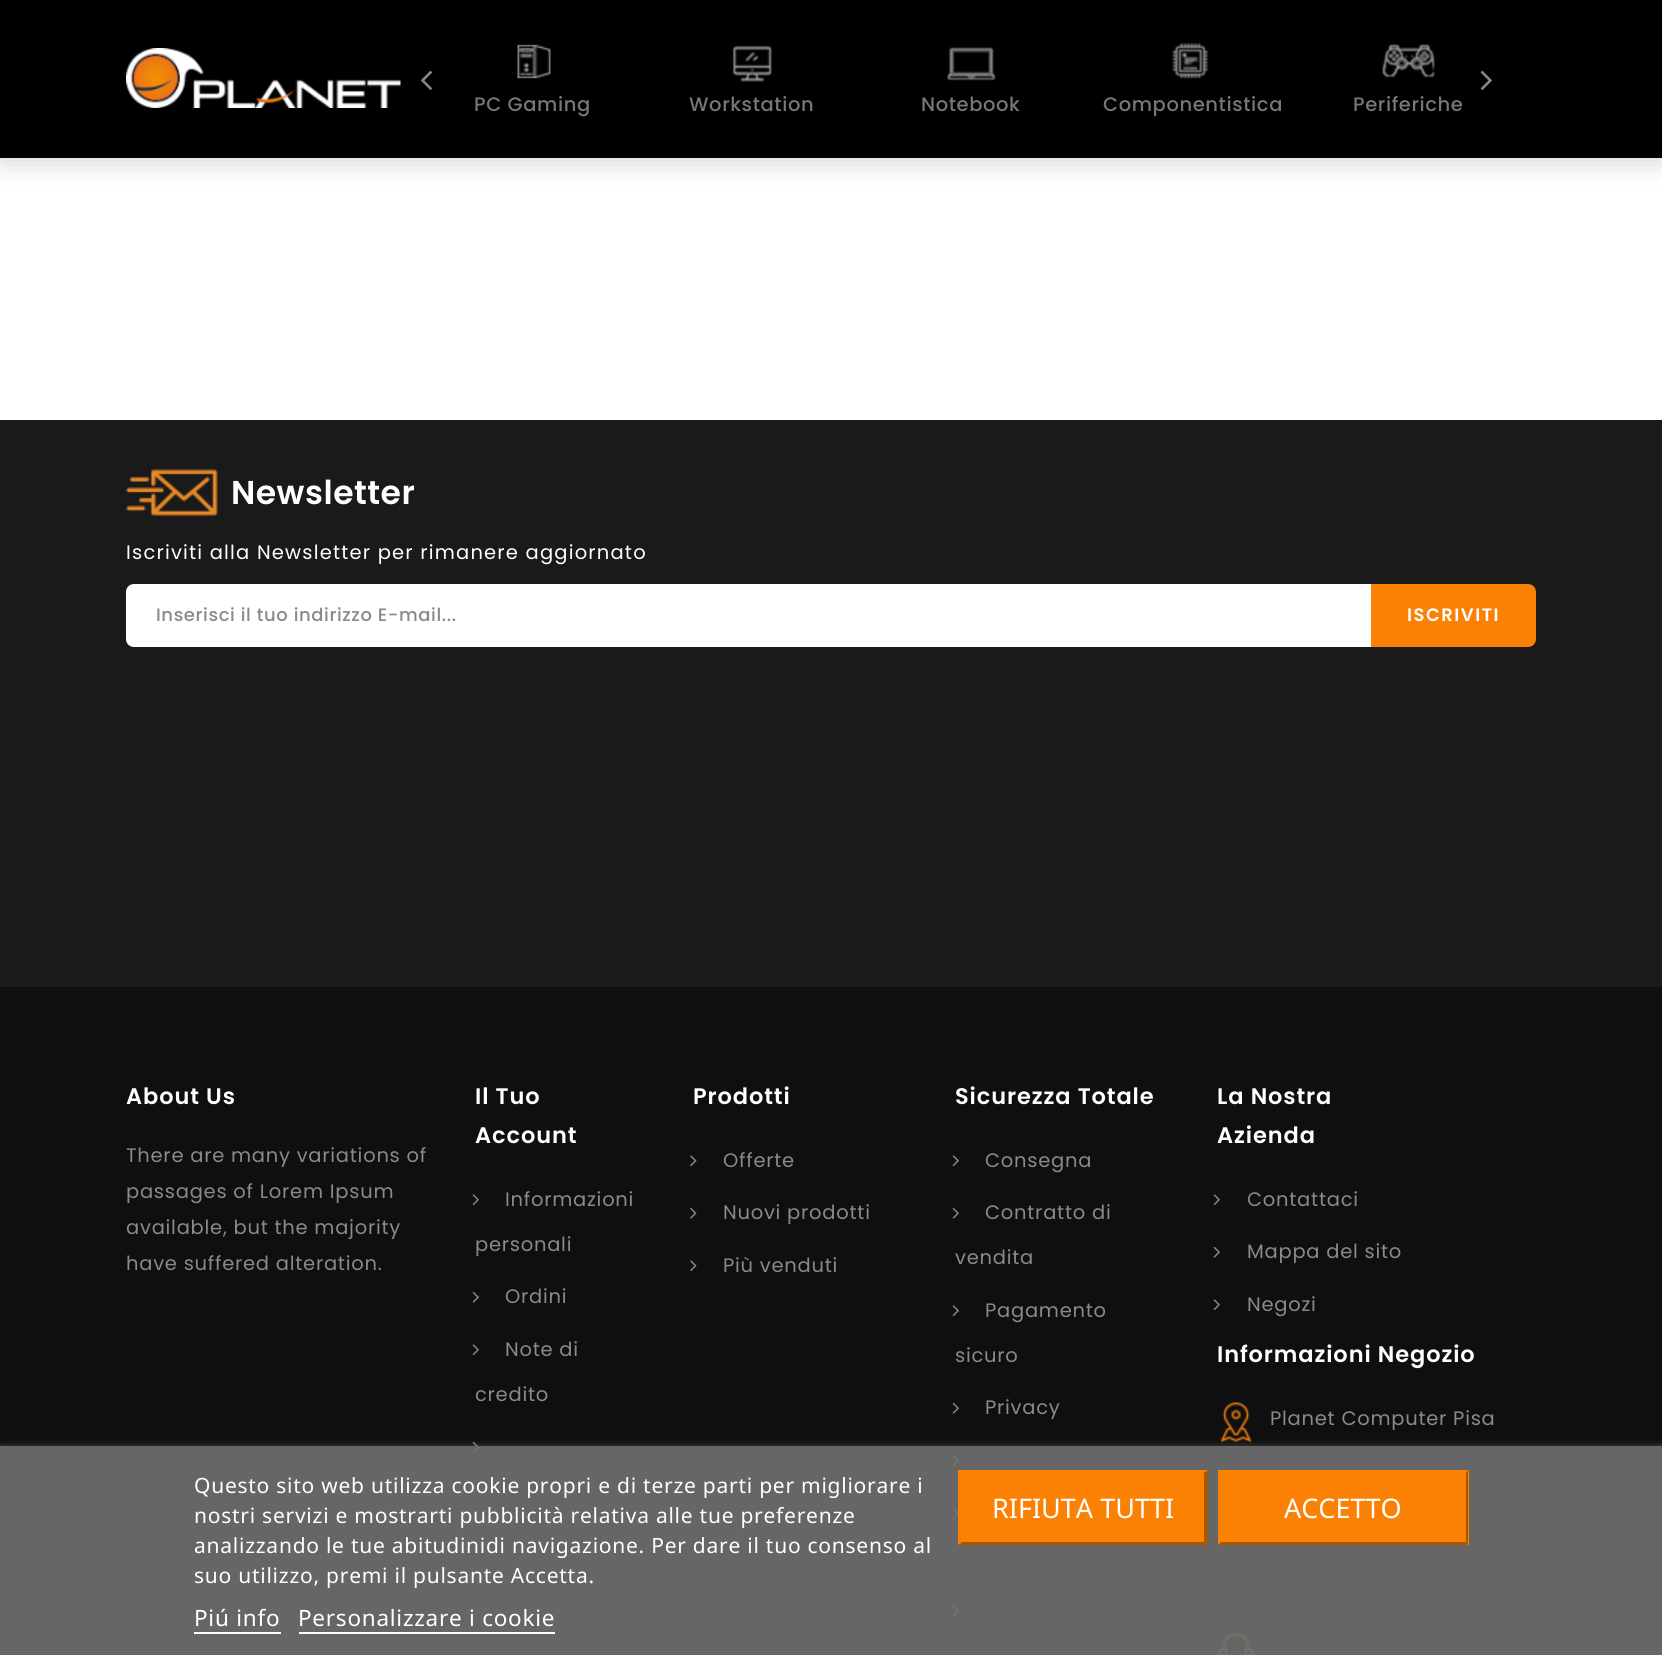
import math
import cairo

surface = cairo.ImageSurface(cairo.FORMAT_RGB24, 1662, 1655)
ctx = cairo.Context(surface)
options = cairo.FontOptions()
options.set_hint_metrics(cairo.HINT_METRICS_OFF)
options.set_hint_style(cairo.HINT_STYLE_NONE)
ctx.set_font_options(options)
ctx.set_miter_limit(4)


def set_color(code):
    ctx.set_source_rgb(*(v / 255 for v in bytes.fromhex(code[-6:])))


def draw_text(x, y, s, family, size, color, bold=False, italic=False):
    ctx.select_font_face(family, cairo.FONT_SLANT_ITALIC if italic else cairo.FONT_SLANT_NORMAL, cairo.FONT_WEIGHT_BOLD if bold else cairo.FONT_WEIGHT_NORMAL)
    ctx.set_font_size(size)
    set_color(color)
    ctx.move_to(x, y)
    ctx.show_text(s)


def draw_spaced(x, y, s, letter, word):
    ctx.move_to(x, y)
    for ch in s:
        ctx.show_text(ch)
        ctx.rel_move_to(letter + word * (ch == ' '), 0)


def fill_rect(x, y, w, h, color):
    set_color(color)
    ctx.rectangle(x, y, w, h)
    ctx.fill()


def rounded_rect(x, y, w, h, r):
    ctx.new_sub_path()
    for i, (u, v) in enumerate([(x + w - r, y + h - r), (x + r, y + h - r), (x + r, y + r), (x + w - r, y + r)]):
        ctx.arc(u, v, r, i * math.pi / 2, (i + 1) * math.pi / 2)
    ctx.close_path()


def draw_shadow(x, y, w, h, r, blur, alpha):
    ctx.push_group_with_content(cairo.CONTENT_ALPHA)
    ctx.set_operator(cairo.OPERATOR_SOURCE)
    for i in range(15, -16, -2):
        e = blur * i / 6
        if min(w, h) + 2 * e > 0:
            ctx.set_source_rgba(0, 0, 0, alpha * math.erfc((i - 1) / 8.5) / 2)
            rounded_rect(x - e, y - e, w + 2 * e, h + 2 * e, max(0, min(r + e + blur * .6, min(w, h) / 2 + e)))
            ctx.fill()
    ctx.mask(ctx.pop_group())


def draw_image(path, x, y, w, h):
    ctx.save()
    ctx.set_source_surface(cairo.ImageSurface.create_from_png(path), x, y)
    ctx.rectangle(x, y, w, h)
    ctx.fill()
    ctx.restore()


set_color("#ffffff")
ctx.paint()
set_color("#000000")
draw_shadow(0, 6, 1662, 158, 0, 12, 0.15)
fill_rect(0, 0, 1662, 158, "#000000")
draw_image("assets/img1.png", 126, 48, 275, 60)
draw_image("assets/img2.png", 420, 70, 12, 20)
draw_image("assets/img3.png", 1480, 70, 12, 20)
draw_image("assets/img4.png", 517, 44, 34, 35)
ctx.select_font_face("Poppins Medium")
ctx.set_font_size(19.5)
set_color("#777777")
draw_spaced(474, 111, "PC Gaming", 0.6, 0)
draw_image("assets/img5.png", 732, 45, 40, 37)
draw_spaced(689, 111, "Workstation", 0.6, 0)
draw_image("assets/img6.png", 947, 47, 49, 34)
draw_spaced(921, 111, "Notebook", 0.6, 0)
draw_image("assets/img7.png", 1172, 42, 37, 37)
draw_spaced(1103, 111, "Componentistica", 0.6, 0)
draw_image("assets/img8.png", 1382, 44, 53, 34)
draw_spaced(1353, 111, "Periferiche", 0.6, 0)
fill_rect(0, 987, 1662, 668, "#0f0f0f")
fill_rect(0, 420, 1662, 567, "#1a1a1a")
draw_image("assets/img9.png", 126, 469, 92, 47)
ctx.select_font_face("Poppins SemiBold")
ctx.set_font_size(33)
set_color("#ffffff")
draw_spaced(231, 504, "Newsletter", 0.5, 0)
ctx.select_font_face("Poppins")
ctx.set_font_size(19.5)
draw_spaced(126, 559, "Iscriviti alla Newsletter per rimanere aggiornato", 1.2, 0)
ctx.new_path()
ctx.move_to(134, 584)
ctx.line_to(1371, 584)
ctx.line_to(1371, 647)
ctx.line_to(134, 647)
ctx.curve_to(129.5, 647, 126, 643.5, 126, 639)
ctx.line_to(126, 592)
ctx.curve_to(126, 587.5, 129.5, 584, 134, 584)
ctx.close_path()
ctx.fill()
ctx.select_font_face("Poppins Medium")
ctx.set_font_size(18)
set_color("#8a8a8a")
draw_spaced(156, 621, "Inserisci il tuo indirizzo E-mail...", 0.6, 0)
set_color("#fb8105")
ctx.new_path()
ctx.move_to(1371, 584)
ctx.line_to(1528, 584)
ctx.curve_to(1532.5, 584, 1536, 587.5, 1536, 592)
ctx.line_to(1536, 639)
ctx.curve_to(1536, 643.5, 1532.5, 647, 1528, 647)
ctx.line_to(1371, 647)
ctx.close_path()
ctx.fill()
ctx.select_font_face("Poppins SemiBold")
set_color("#ffffff")
draw_spaced(1407, 621, "ISCRIVITI", 1.5, 0)
ctx.set_font_size(22.5)
draw_spaced(126, 1104, "About Us", 0.9, 0)
ctx.select_font_face("Poppins")
ctx.set_font_size(19.5)
set_color("#8a8a8a")
draw_spaced(126, 1162, "There are many variations of", 0.75, 0)
draw_spaced(126, 1198, "passages of Lorem Ipsum", 0.75, 0)
draw_spaced(126, 1234, "available, but the majority", 0.75, 0)
draw_spaced(126, 1270, "have suffered alteration.", 0.75, 0)
ctx.select_font_face("Poppins SemiBold")
ctx.set_font_size(22.5)
set_color("#ffffff")
draw_spaced(475, 1104, "Il Tuo", 0.9, 0)
draw_spaced(475, 1143, "Account", 0.9, 0)
draw_image("assets/img10.png", 472, 1194, 7, 12)
ctx.select_font_face("Poppins")
ctx.set_font_size(19.5)
set_color("#8a8a8a")
draw_spaced(505, 1206, "Informazioni", 0.75, 0)
draw_spaced(475, 1251, "personali", 0.75, 0)
draw_image("assets/img11.png", 472, 1291, 7, 12)
draw_spaced(505, 1303, "Ordini", 0.75, 0)
draw_image("assets/img10.png", 472, 1344, 7, 12)
draw_spaced(505, 1356, "Note di", 0.75, 0)
draw_spaced(475, 1401, "credito", 0.75, 0)
draw_image("assets/img11.png", 472, 1441, 7, 12)
ctx.select_font_face("Poppins SemiBold")
ctx.set_font_size(22.5)
set_color("#ffffff")
draw_spaced(693, 1104, "Prodotti", 0.9, 0)
draw_image("assets/img12.png", 690, 1155, 7, 12)
ctx.select_font_face("Poppins")
ctx.set_font_size(19.5)
set_color("#8a8a8a")
draw_spaced(723, 1167, "Offerte", 0.75, 0)
draw_image("assets/img13.png", 690, 1207, 7, 12)
draw_spaced(723, 1219, "Nuovi prodotti", 0.75, 0)
draw_image("assets/img12.png", 690, 1260, 7, 12)
draw_spaced(723, 1272, "Più venduti", 0.75, 0)
ctx.select_font_face("Poppins SemiBold")
ctx.set_font_size(22.5)
set_color("#ffffff")
draw_spaced(955, 1104, "Sicurezza Totale", 0.9, 0)
draw_image("assets/img10.png", 952, 1155, 7, 12)
ctx.select_font_face("Poppins")
ctx.set_font_size(19.5)
set_color("#8a8a8a")
draw_spaced(985, 1167, "Consegna", 0.75, 0)
draw_image("assets/img11.png", 952, 1207, 7, 12)
draw_spaced(985, 1219, "Contratto di", 0.75, 0)
draw_spaced(955, 1264, "vendita", 0.75, 0)
draw_image("assets/img10.png", 952, 1305, 7, 12)
draw_spaced(985, 1317, "Pagamento", 0.75, 0)
draw_spaced(955, 1362, "sicuro", 0.75, 0)
draw_image("assets/img11.png", 952, 1402, 7, 12)
draw_spaced(985, 1414, "Privacy", 0.75, 0)
draw_image("assets/img10.png", 952, 1455, 7, 12)
draw_image("assets/img14.png", 952, 1507, 6, 12)
draw_image("assets/img10.png", 952, 1605, 7, 12)
ctx.select_font_face("Poppins SemiBold")
ctx.set_font_size(22.5)
set_color("#ffffff")
draw_spaced(1217, 1104, "La Nostra", 0.9, 0)
draw_spaced(1217, 1143, "Azienda", 0.9, 0)
draw_image("assets/img10.png", 1213, 1194, 7, 12)
ctx.select_font_face("Poppins")
ctx.set_font_size(19.5)
set_color("#8a8a8a")
draw_spaced(1247, 1206, "Contattaci", 0.75, 0)
draw_image("assets/img11.png", 1213, 1246, 7, 12)
draw_spaced(1247, 1258, "Mappa del sito", 0.75, 0)
draw_image("assets/img10.png", 1213, 1299, 7, 12)
draw_spaced(1247, 1311, "Negozi", 0.75, 0)
ctx.select_font_face("Poppins SemiBold")
ctx.set_font_size(22.5)
set_color("#ffffff")
draw_spaced(1217, 1362, "Informazioni Negozio", 0.9, 0)
draw_image("assets/img15.png", 1220, 1402, 32, 40)
ctx.select_font_face("Poppins")
ctx.set_font_size(19.5)
set_color("#8a8a8a")
draw_spaced(1270, 1425, "Planet Computer Pisa", 0.75, 0)
draw_image("assets/img16.png", 1218, 1633, 36, 22)
ctx.save()
ctx.rectangle(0, 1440, 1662, 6)
ctx.clip()
set_color("#707070")
draw_shadow(0, 1448, 1662, 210, 0, 4, 1)
ctx.restore()
ctx.set_source_rgba(0.439, 0.439, 0.439, 0.9)
ctx.rectangle(0, 1446, 1662, 209)
ctx.fill()
ctx.select_font_face("Noto Sans")
ctx.set_font_size(21)
set_color("#ffffff")
draw_spaced(194, 1493, "Questo sito web utilizza cookie propri e di terze parti per migliorare i", 0.75, 0)
draw_spaced(194, 1523, "nostri servizi e mostrarti pubblicità relativa alle tue preferenze", 0.75, 0)
draw_spaced(194, 1553, "analizzando le tue abitudinidi navigazione. Per dare il tuo consenso al", 0.75, 0)
draw_spaced(194, 1583, "suo utilizzo, premi il pulsante Accetta.", 0.75, 0)
ctx.set_font_size(22.5)
draw_spaced(194, 1626, "Piú info", 0.75, 0)
fill_rect(194, 1632, 87, 2, "#ffffff")
draw_spaced(298, 1626, "Personalizzare i cookie", 0.75, 0)
fill_rect(299, 1632, 256, 2, "#ffffff")
fill_rect(959, 1470, 249, 75, "#fb8105")
ctx.new_path()
ctx.move_to(958, 1470)
ctx.line_to(1208, 1470)
ctx.line_to(1204, 1473)
ctx.line_to(962, 1473)
ctx.close_path()
ctx.fill()
set_color("#a75603")
ctx.new_path()
ctx.move_to(1208, 1470)
ctx.line_to(1208, 1545)
ctx.line_to(1204, 1542)
ctx.line_to(1204, 1473)
ctx.close_path()
ctx.fill()
ctx.new_path()
ctx.move_to(1208, 1545)
ctx.line_to(958, 1545)
ctx.line_to(962, 1542)
ctx.line_to(1204, 1542)
ctx.close_path()
ctx.fill()
set_color("#fb8105")
ctx.new_path()
ctx.move_to(958, 1545)
ctx.line_to(958, 1470)
ctx.line_to(962, 1473)
ctx.line_to(962, 1542)
ctx.close_path()
ctx.fill()
draw_text(992, 1518, "RIFIUTA TUTTI", "Noto Sans", 27, "#ffffff")
fill_rect(1218, 1470, 251, 75, "#fb8105")
set_color("#a75603")
ctx.new_path()
ctx.move_to(1468, 1470)
ctx.line_to(1468, 1545)
ctx.line_to(1466, 1542)
ctx.line_to(1466, 1473)
ctx.close_path()
ctx.fill()
ctx.new_path()
ctx.move_to(1468, 1545)
ctx.line_to(1218, 1545)
ctx.line_to(1221, 1542)
ctx.line_to(1466, 1542)
ctx.close_path()
ctx.fill()
set_color("#fb8105")
ctx.new_path()
ctx.move_to(1218, 1545)
ctx.line_to(1218, 1470)
ctx.line_to(1221, 1473)
ctx.line_to(1221, 1542)
ctx.close_path()
ctx.fill()
draw_text(1284, 1518, "ACCETTO", "Noto Sans", 27, "#ffffff")
surface.write_to_png("output.png")
